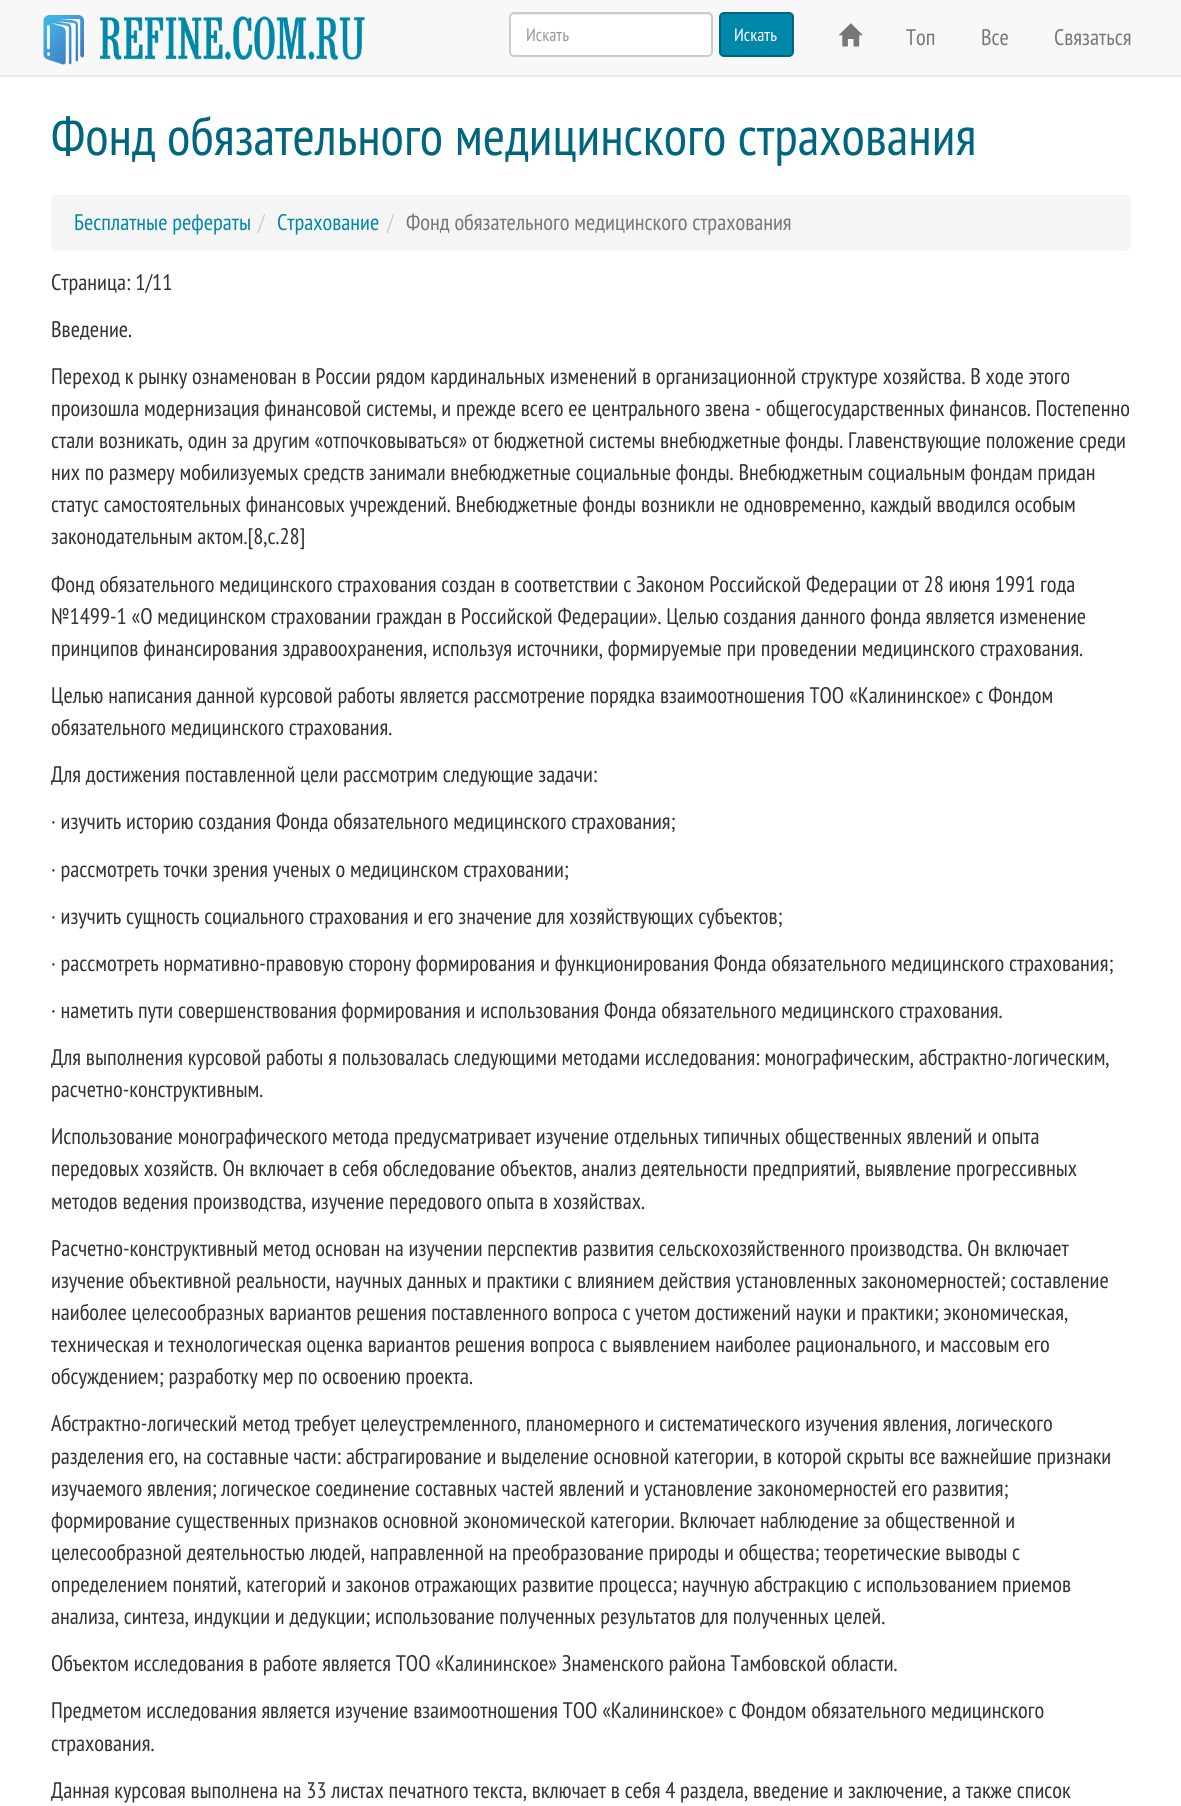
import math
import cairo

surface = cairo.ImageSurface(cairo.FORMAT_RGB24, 1181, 1806)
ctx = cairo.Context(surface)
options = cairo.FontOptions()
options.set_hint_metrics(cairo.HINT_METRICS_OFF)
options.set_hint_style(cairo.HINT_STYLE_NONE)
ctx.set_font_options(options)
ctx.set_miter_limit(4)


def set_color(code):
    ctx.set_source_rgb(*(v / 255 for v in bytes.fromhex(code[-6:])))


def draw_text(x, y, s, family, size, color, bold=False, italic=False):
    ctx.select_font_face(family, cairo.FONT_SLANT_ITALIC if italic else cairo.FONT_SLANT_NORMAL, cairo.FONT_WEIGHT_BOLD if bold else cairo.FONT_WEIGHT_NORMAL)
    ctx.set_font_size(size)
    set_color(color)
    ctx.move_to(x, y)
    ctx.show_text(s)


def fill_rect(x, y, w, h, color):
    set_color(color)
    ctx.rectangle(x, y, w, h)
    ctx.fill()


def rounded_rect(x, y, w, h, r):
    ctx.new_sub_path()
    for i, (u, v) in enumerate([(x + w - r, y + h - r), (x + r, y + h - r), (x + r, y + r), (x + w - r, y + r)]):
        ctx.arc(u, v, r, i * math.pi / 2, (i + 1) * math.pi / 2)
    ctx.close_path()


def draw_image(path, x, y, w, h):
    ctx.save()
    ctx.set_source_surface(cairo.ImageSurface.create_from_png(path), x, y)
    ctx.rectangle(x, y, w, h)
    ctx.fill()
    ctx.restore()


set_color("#ffffff")
ctx.paint()
fill_rect(0, 0, 1181, 75, "#f8f8f8")
fill_rect(0, 75, 1181, 2, "#e7e7e7")
draw_image("assets/img1.png", 43, 15, 322, 50)
set_color("#ffffff")
rounded_rect(509, 12, 204, 45, 5)
ctx.fill()
set_color("#ececec")
ctx.new_path()
ctx.move_to(513, 15)
ctx.line_to(708, 15)
ctx.curve_to(710, 15, 711, 16, 711, 18)
ctx.curve_to(711, 16, 710, 14, 708, 14)
ctx.line_to(513, 14)
ctx.curve_to(511, 14, 510, 16, 510, 18)
ctx.curve_to(510, 16, 511, 15, 513, 15)
ctx.close_path()
ctx.fill()
rounded_rect(510, 13, 202, 43, 4)
set_color("#cccccc")
ctx.stroke()
draw_text(526, 41, "Искать", "PT Sans Narrow", 18, "#999999")
set_color("#0088aa")
rounded_rect(720, 13, 73, 43, 4)
ctx.fill_preserve()
set_color("#006680")
ctx.stroke()
draw_text(734, 41, "Искать", "PT Sans Narrow", 18, "#ffffff")
draw_image("assets/img2.png", 838, 23, 25, 24)
draw_text(906, 45, "Топ", "PT Sans Narrow", 22.5, "#777777")
draw_text(981, 45, "Все", "PT Sans Narrow", 22.5, "#777777")
draw_text(1054, 45, "Связаться", "PT Sans Narrow", 22.5, "#777777")
draw_text(51, 155, "Фонд обязательного медицинского страхования", "PT Sans Narrow", 54, "#006680")
set_color("#f5f5f5")
rounded_rect(51, 195, 1080, 56, 6)
ctx.fill()
draw_text(74, 230, "Бесплатные рефераты", "PT Sans Narrow", 22.5, "#0088aa")
draw_text(258, 230, "/", "PT Sans Narrow", 22.5, "#cccccc")
draw_text(277, 230, "Страхование", "PT Sans Narrow", 22.5, "#0088aa")
draw_text(387, 230, "/", "PT Sans Narrow", 22.5, "#cccccc")
draw_text(406, 230, "Фонд обязательного медицинского страхования", "PT Sans Narrow", 22.5, "#777777")
draw_text(51, 290, "Страница: 1/11", "PT Sans Narrow", 22.5, "#333333")
draw_text(51, 337, "Введение.", "PT Sans Narrow", 22.5, "#333333")
draw_text(51, 384, "Переход к рынку ознаменован в России рядом кардинальных изменений в организационной структуре хозяйства. В ходе этого", "PT Sans Narrow", 22.5, "#333333")
draw_text(51, 416, "произошла модернизация финансовой системы, и прежде всего ее центрального звена - общегосударственных финансов. Постепенно", "PT Sans Narrow", 22.5, "#333333")
draw_text(51, 448, "стали возникать, один за другим «отпочковываться» от бюджетной системы внебюджетные фонды. Главенствующие положение среди", "PT Sans Narrow", 22.5, "#333333")
draw_text(51, 480, "них по размеру мобилизуемых средств занимали внебюджетные социальные фонды. Внебюджетным социальным фондам придан", "PT Sans Narrow", 22.5, "#333333")
draw_text(51, 512, "статус самостоятельных финансовых учреждений. Внебюджетные фонды возникли не одновременно, каждый вводился особым", "PT Sans Narrow", 22.5, "#333333")
draw_text(51, 544, "законодательным актом.[8,с.28]", "PT Sans Narrow", 22.5, "#333333")
draw_text(51, 592, "Фонд обязательного медицинского страхования создан в соответствии с Законом Российской Федерации от 28 июня 1991 года", "PT Sans Narrow", 22.5, "#333333")
draw_text(51, 624, "№1499-1 «О медицинском страховании граждан в Российской Федерации». Целью создания данного фонда является изменение", "PT Sans Narrow", 22.5, "#333333")
draw_text(51, 656, "принципов финансирования здравоохранения, используя источники, формируемые при проведении медицинского страхования.", "PT Sans Narrow", 22.5, "#333333")
draw_text(51, 703, "Целью написания данной курсовой работы является рассмотрение порядка взаимоотношения ТОО «Калининское» с Фондом", "PT Sans Narrow", 22.5, "#333333")
draw_text(51, 735, "обязательного медицинского страхования.", "PT Sans Narrow", 22.5, "#333333")
draw_text(51, 782, "Для достижения поставленной цели рассмотрим следующие задачи:", "PT Sans Narrow", 22.5, "#333333")
draw_text(51, 829, "· изучить историю создания Фонда обязательного медицинского страхования;", "PT Sans Narrow", 22.5, "#333333")
draw_text(51, 877, "· рассмотреть точки зрения ученых о медицинском страховании;", "PT Sans Narrow", 22.5, "#333333")
draw_text(51, 924, "· изучить сущность социального страхования и его значение для хозяйствующих субъектов;", "PT Sans Narrow", 22.5, "#333333")
draw_text(51, 971, "· рассмотреть нормативно-правовую сторону формирования и функционирования Фонда обязательного медицинского страхования;", "PT Sans Narrow", 22.5, "#333333")
draw_text(51, 1018, "· наметить пути совершенствования формирования и использования Фонда обязательного медицинского страхования.", "PT Sans Narrow", 22.5, "#333333")
draw_text(51, 1065, "Для выполнения курсовой работы я пользовалась следующими методами исследования: монографическим, абстрактно-логическим,", "PT Sans Narrow", 22.5, "#333333")
draw_text(51, 1097, "расчетно-конструктивным.", "PT Sans Narrow", 22.5, "#333333")
draw_text(51, 1144, "Использование монографического метода предусматривает изучение отдельных типичных общественных явлений и опыта", "PT Sans Narrow", 22.5, "#333333")
draw_text(51, 1176, "передовых хозяйств. Он включает в себя обследование объектов, анализ деятельности предприятий, выявление прогрессивных", "PT Sans Narrow", 22.5, "#333333")
draw_text(51, 1209, "методов ведения производства, изучение передового опыта в хозяйствах.", "PT Sans Narrow", 22.5, "#333333")
draw_text(51, 1256, "Расчетно-конструктивный метод основан на изучении перспектив развития сельскохозяйственного производства. Он включает", "PT Sans Narrow", 22.5, "#333333")
draw_text(51, 1288, "изучение объективной реальности, научных данных и практики с влиянием действия установленных закономерностей; составление", "PT Sans Narrow", 22.5, "#333333")
draw_text(51, 1320, "наиболее целесообразных вариантов решения поставленного вопроса с учетом достижений науки и практики; экономическая,", "PT Sans Narrow", 22.5, "#333333")
draw_text(51, 1352, "техническая и технологическая оценка вариантов решения вопроса с выявлением наиболее рационального, и массовым его", "PT Sans Narrow", 22.5, "#333333")
draw_text(51, 1384, "обсуждением; разработку мер по освоению проекта.", "PT Sans Narrow", 22.5, "#333333")
draw_text(51, 1431, "Абстрактно-логический метод требует целеустремленного, планомерного и систематического изучения явления, логического", "PT Sans Narrow", 22.5, "#333333")
draw_text(51, 1464, "разделения его, на составные части: абстрагирование и выделение основной категории, в которой скрыты все важнейшие признаки", "PT Sans Narrow", 22.5, "#333333")
draw_text(51, 1496, "изучаемого явления; логическое соединение составных частей явлений и установление закономерностей его развития;", "PT Sans Narrow", 22.5, "#333333")
draw_text(51, 1528, "формирование существенных признаков основной экономической категории. Включает наблюдение за общественной и", "PT Sans Narrow", 22.5, "#333333")
draw_text(51, 1560, "целесообразной деятельностью людей, направленной на преобразование природы и общества; теоретические выводы с", "PT Sans Narrow", 22.5, "#333333")
draw_text(51, 1592, "определением понятий, категорий и законов отражающих развитие процесса; научную абстракцию с использованием приемов", "PT Sans Narrow", 22.5, "#333333")
draw_text(51, 1624, "анализа, синтеза, индукции и дедукции; использование полученных результатов для полученных целей.", "PT Sans Narrow", 22.5, "#333333")
draw_text(51, 1671, "Объектом исследования в работе является ТОО «Калининское» Знаменского района Тамбовской области.", "PT Sans Narrow", 22.5, "#333333")
draw_text(51, 1718, "Предметом исследования является изучение взаимоотношения ТОО «Калининское» с Фондом обязательного медицинского", "PT Sans Narrow", 22.5, "#333333")
draw_text(51, 1751, "страхования.", "PT Sans Narrow", 22.5, "#333333")
draw_text(51, 1798, "Данная курсовая выполнена на 33 листах печатного текста, включает в себя 4 раздела, введение и заключение, а также список", "PT Sans Narrow", 22.5, "#333333")
surface.write_to_png("output.png")
